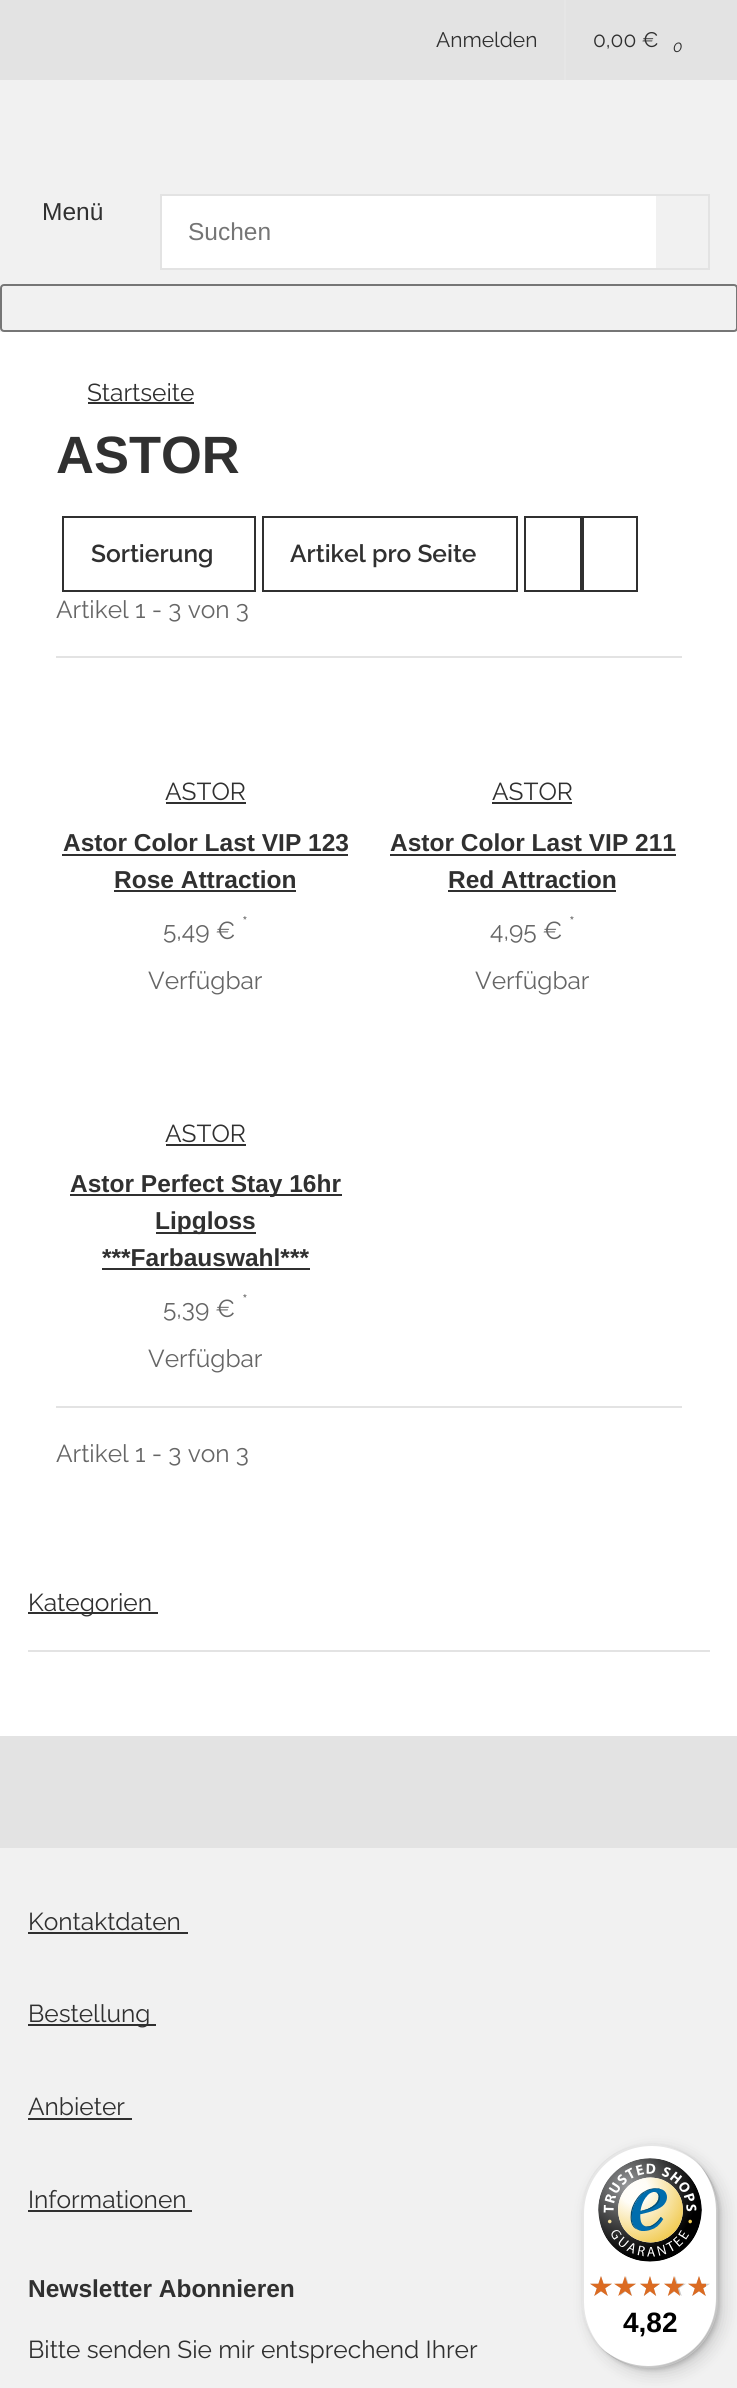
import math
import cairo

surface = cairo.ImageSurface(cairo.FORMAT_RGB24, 737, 2388)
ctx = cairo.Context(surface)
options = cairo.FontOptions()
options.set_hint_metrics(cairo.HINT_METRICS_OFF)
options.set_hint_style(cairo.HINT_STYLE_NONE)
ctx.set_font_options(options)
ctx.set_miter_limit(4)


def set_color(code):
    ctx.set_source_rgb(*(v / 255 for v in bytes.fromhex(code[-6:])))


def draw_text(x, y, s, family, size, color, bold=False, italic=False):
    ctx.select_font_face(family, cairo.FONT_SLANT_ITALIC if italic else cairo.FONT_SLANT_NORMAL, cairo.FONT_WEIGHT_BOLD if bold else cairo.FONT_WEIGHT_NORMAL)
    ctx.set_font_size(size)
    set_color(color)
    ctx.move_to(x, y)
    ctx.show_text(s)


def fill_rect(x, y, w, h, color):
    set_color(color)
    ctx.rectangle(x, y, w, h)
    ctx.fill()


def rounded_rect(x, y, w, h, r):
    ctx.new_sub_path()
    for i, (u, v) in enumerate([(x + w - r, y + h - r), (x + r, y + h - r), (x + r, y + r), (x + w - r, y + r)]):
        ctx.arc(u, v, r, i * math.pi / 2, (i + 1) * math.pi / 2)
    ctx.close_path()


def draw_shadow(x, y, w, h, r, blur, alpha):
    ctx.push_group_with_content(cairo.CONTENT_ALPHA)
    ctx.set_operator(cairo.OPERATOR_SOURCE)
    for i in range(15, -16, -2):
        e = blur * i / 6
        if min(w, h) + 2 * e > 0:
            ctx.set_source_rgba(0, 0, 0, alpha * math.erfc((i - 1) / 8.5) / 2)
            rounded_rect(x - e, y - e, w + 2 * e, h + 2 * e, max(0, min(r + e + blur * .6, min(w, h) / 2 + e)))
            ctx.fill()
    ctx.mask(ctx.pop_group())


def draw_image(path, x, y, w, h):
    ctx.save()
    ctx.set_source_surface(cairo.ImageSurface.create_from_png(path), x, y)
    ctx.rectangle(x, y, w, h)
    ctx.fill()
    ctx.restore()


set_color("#f1f1f1")
ctx.paint()
fill_rect(0, 0, 737, 80, "#e3e3e3")
draw_text(436, 47, "Anmelden", "Raleway", 21, "#303030")
fill_rect(564, 0, 2, 80, "#e6e6e6")
draw_text(593, 47, "0,00 €", "Raleway", 21, "#303030")
draw_text(673, 52, "0", "Raleway", 16, "#303030", italic=True)
draw_text(42, 220, "Menü", "Liberation Sans", 24.5, "#303030")
fill_rect(162, 196, 494, 72, "#ffffff")
fill_rect(160, 194, 550, 2, "#e3e3e3")
fill_rect(160, 268, 496, 2, "#e3e3e3")
fill_rect(160, 194, 2, 76, "#e3e3e3")
draw_text(188, 240, "Suchen", "Liberation Sans", 24.5, "#757575")
fill_rect(708, 194, 2, 76, "#e3e3e3")
fill_rect(656, 268, 54, 2, "#e3e3e3")
rounded_rect(1, 285, 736, 46, 3)
set_color("#767676")
ctx.stroke()
fill_rect(0, 332, 737, 1404, "#ffffff")
draw_text(87, 401, "Startseite", "Raleway", 24.5, "#303030")
fill_rect(88, 402, 106, 2, "#303030")
draw_text(56, 473, "ASTOR", "Liberation Sans", 52.5, "#303030", bold=True)
ctx.rectangle(63, 517, 192, 74)
ctx.stroke()
draw_text(91, 562, "Sortierung", "Raleway SemiBold", 24.5, "#303030")
ctx.rectangle(263, 517, 254, 74)
ctx.stroke()
draw_text(290, 562, "Artikel pro Seite", "Raleway SemiBold", 24.5, "#303030")
ctx.rectangle(525, 517, 56, 74)
ctx.stroke()
ctx.rectangle(583, 517, 54, 74)
ctx.stroke()
draw_text(56, 618, "Artikel 1 - 3 von 3", "Raleway", 24.5, "#666666")
fill_rect(56, 656, 626, 2, "#e3e3e3")
draw_text(165, 800, "ASTOR", "Raleway", 24.5, "#303030")
fill_rect(166, 802, 80, 2, "#303030")
draw_text(63, 851, "Astor Color Last VIP 123", "Liberation Sans", 24.5, "#303030", bold=True)
fill_rect(62, 854, 286, 2, "#303030")
draw_text(114, 888, "Rose Attraction", "Liberation Sans", 24.5, "#303030", bold=True)
fill_rect(114, 890, 182, 2, "#303030")
draw_text(242, 929, "*", "Raleway", 18, "#666666")
draw_text(163, 939, "5,49 €", "Raleway", 24.5, "#666666")
draw_text(148, 989, "Verfügbar", "Raleway", 24.5, "#666666")
draw_text(492, 800, "ASTOR", "Raleway", 24.5, "#303030")
fill_rect(492, 802, 80, 2, "#303030")
draw_text(390, 851, "Astor Color Last VIP 211", "Liberation Sans", 24.5, "#303030", bold=True)
fill_rect(390, 854, 286, 2, "#303030")
draw_text(448, 888, "Red Attraction", "Liberation Sans", 24.5, "#303030", bold=True)
fill_rect(448, 890, 168, 2, "#303030")
draw_text(569, 929, "*", "Raleway", 18, "#666666")
draw_text(490, 939, "4,95 €", "Raleway", 24.5, "#666666")
draw_text(475, 989, "Verfügbar", "Raleway", 24.5, "#666666")
draw_text(165, 1142, "ASTOR", "Raleway", 24.5, "#303030")
fill_rect(166, 1144, 80, 2, "#303030")
fill_rect(70, 1194, 272, 2, "#303030")
draw_text(70, 1192, "Astor Perfect Stay 16hr", "Liberation Sans", 24.5, "#303030", bold=True)
fill_rect(156, 1232, 100, 2, "#303030")
draw_text(155, 1229, "Lipgloss", "Liberation Sans", 24.5, "#303030", bold=True)
draw_text(102, 1266, "***Farbauswahl***", "Liberation Sans", 24.5, "#303030", bold=True)
fill_rect(102, 1268, 208, 2, "#303030")
draw_text(242, 1307, "*", "Raleway", 18, "#666666")
draw_text(163, 1317, "5,39 €", "Raleway", 24.5, "#666666")
draw_text(148, 1367, "Verfügbar", "Raleway", 24.5, "#666666")
fill_rect(56, 1406, 626, 2, "#e3e3e3")
draw_text(56, 1462, "Artikel 1 - 3 von 3", "Raleway", 24.5, "#666666")
fill_rect(28, 1612, 130, 2, "#303030")
draw_text(28, 1611, "Kategorien", "Raleway", 24.5, "#303030")
fill_rect(28, 1650, 682, 2, "#e3e3e3")
fill_rect(0, 1736, 737, 112, "#e3e3e3")
draw_text(28, 1930, "Kontaktdaten", "Raleway", 24.5, "#303030")
fill_rect(28, 1932, 160, 2, "#303030")
fill_rect(28, 2024, 128, 2, "#303030")
draw_text(28, 2022, "Bestellung", "Raleway", 24.5, "#303030")
draw_text(28, 2115, "Anbieter", "Raleway", 24.5, "#303030")
fill_rect(28, 2118, 104, 2, "#303030")
draw_text(28, 2208, "Informationen", "Raleway", 24.5, "#303030")
fill_rect(28, 2210, 164, 2, "#303030")
draw_text(28, 2297, "Newsletter Abonnieren", "Liberation Sans", 24.5, "#303030", bold=True)
draw_text(28, 2358, "Bitte senden Sie mir entsprechend Ihrer", "Raleway", 24.5, "#303030")
set_color("#000000")
draw_shadow(588, 2150, 136, 224, 68, 8, 0.15)
draw_shadow(584, 2146, 136, 224, 68, 2, 0.15)
set_color("#ffffff")
rounded_rect(582, 2144, 136, 224, 68)
ctx.fill()
ctx.set_source_rgba(0, 0, 0, 0.1)
ctx.new_path()
ctx.move_to(652, 2146)
ctx.curve_to(668, 2146, 683, 2152, 695, 2161)
ctx.curve_to(683, 2150, 667, 2144, 650, 2144)
ctx.curve_to(612, 2144, 582, 2174, 582, 2212)
ctx.line_to(582, 2300)
ctx.curve_to(582, 2317, 588, 2333, 599, 2345)
ctx.curve_to(590, 2333, 584, 2318, 584, 2302)
ctx.line_to(584, 2214)
ctx.curve_to(584, 2176, 614, 2146, 652, 2146)
ctx.close_path()
ctx.fill()
ctx.set_source_rgba(0, 0, 0, 0.2)
ctx.new_path()
ctx.move_to(605, 2351)
ctx.curve_to(617, 2362, 633, 2368, 650, 2368)
ctx.curve_to(688, 2368, 718, 2338, 718, 2300)
ctx.line_to(718, 2212)
ctx.curve_to(718, 2195, 712, 2179, 701, 2167)
ctx.curve_to(710, 2179, 716, 2194, 716, 2210)
ctx.line_to(716, 2298)
ctx.curve_to(716, 2336, 686, 2366, 648, 2366)
ctx.curve_to(632, 2366, 617, 2360, 605, 2351)
ctx.close_path()
ctx.fill()
ctx.set_source_rgba(0.196, 0.196, 0.196, 0.2)
ctx.new_path()
ctx.move_to(600, 2347)
ctx.curve_to(613, 2360, 630, 2368, 650, 2368)
ctx.curve_to(688, 2368, 718, 2338, 718, 2300)
ctx.line_to(718, 2212)
ctx.curve_to(718, 2192, 710, 2175, 697, 2162)
ctx.curve_to(709, 2175, 717, 2192, 717, 2211)
ctx.line_to(717, 2299)
ctx.curve_to(717, 2336, 686, 2367, 649, 2367)
ctx.curve_to(630, 2367, 613, 2359, 600, 2347)
ctx.close_path()
ctx.fill()
ctx.set_source_rgba(1, 1, 1, 0.3)
ctx.new_path()
ctx.move_to(609, 2354)
ctx.curve_to(621, 2363, 635, 2368, 650, 2368)
ctx.curve_to(688, 2368, 718, 2338, 718, 2300)
ctx.line_to(718, 2212)
ctx.curve_to(718, 2197, 713, 2183, 704, 2171)
ctx.curve_to(712, 2182, 717, 2196, 717, 2211)
ctx.line_to(717, 2299)
ctx.curve_to(717, 2337, 687, 2367, 649, 2367)
ctx.curve_to(634, 2367, 620, 2362, 609, 2354)
ctx.close_path()
ctx.fill()
draw_image("assets/img1.png", 598, 2158, 104, 104)
draw_image("assets/img2.png", 590, 2276, 22, 20)
draw_image("assets/img3.png", 616, 2276, 20, 20)
draw_image("assets/img4.png", 640, 2276, 20, 20)
draw_image("assets/img5.png", 664, 2276, 22, 20)
draw_image("assets/img5.png", 688, 2276, 22, 20)
draw_image("assets/img6.png", 590, 2276, 22, 20)
draw_image("assets/img7.png", 614, 2276, 22, 20)
draw_image("assets/img8.png", 640, 2276, 20, 20)
draw_image("assets/img9.png", 664, 2276, 20, 20)
draw_image("assets/img10.png", 688, 2276, 18, 20)
draw_text(623, 2332, "4,82", "Liberation Sans", 28, "#000000", bold=True)
surface.write_to_png("output.png")
